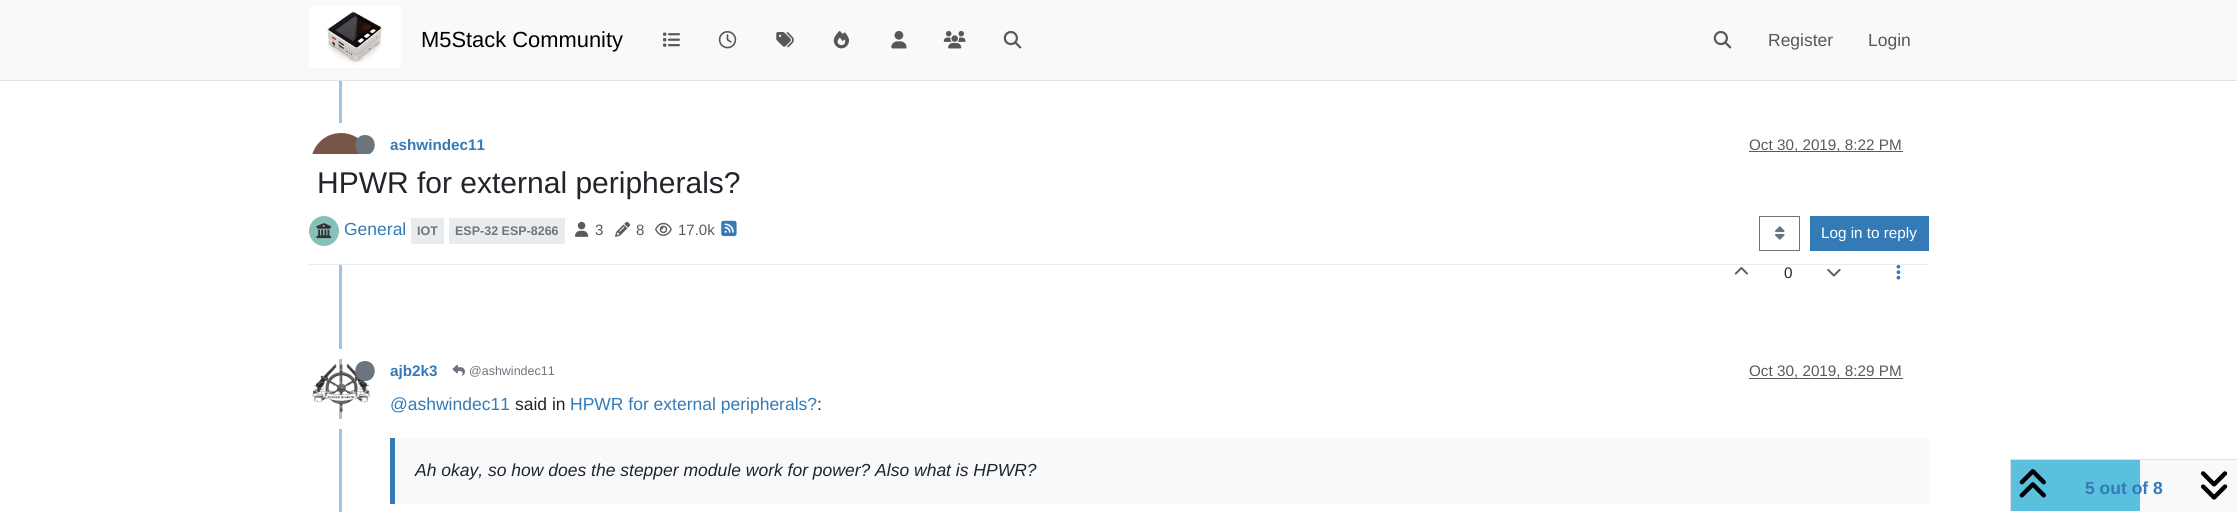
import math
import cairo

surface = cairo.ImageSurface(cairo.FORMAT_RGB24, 2237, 512)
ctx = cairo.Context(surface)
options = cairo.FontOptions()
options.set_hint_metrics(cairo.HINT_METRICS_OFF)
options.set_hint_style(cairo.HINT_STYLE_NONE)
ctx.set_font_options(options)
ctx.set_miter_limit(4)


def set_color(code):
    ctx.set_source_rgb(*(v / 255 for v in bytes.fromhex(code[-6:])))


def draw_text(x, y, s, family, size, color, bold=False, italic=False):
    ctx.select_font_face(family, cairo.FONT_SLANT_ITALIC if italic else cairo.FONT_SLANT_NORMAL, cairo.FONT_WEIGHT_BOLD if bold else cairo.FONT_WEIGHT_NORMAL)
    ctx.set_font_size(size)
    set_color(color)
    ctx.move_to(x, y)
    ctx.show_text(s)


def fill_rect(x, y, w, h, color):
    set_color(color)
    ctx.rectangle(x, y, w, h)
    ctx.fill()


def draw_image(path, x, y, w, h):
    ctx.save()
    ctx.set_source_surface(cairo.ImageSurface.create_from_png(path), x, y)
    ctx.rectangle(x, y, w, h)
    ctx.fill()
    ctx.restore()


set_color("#ffffff")
ctx.paint()
fill_rect(0, 0, 2237, 80, "#f8f9fa")
fill_rect(0, 80, 2237, 1, "#dee2e6")
draw_image("assets/img1.png", 309, 6, 92, 62)
draw_text(421, 47, "M5Stack Community", "Liberation Sans", 21.9, "#000000")
draw_image("assets/img2.png", 663, 32, 17, 15)
draw_image("assets/img3.png", 718, 31, 19, 18)
draw_image("assets/img4.png", 776, 32, 18, 16)
draw_image("assets/img5.png", 833, 31, 16, 18)
draw_image("assets/img6.png", 891, 31, 16, 18)
draw_image("assets/img7.png", 943, 31, 23, 18)
draw_image("assets/img8.png", 1003, 31, 19, 18)
draw_image("assets/img8.png", 1713, 31, 19, 18)
draw_text(1768, 46, "Register", "Liberation Sans", 17.5, "#575758")
draw_text(1868, 46, "Login", "Liberation Sans", 17.5, "#575758")
fill_rect(339, 81, 3, 431, "#a0c4e4")
ctx.new_path()
ctx.arc(341, 163, 35, 0, 2 * math.pi)
set_color("#ffffff")
ctx.set_line_width(10)
ctx.stroke()
set_color("#795548")
ctx.arc(341, 163, 30, 0, 2 * math.pi)
ctx.fill()
set_color("#6c757d")
ctx.new_path()
ctx.move_to(365, 155)
ctx.curve_to(378, 155, 378, 135, 365, 135)
ctx.curve_to(352, 135, 352, 155, 365, 155)
ctx.close_path()
ctx.fill()
draw_text(390, 150, "ashwindec11", "Liberation Sans", 15.25, "#337ab7", bold=True)
fill_rect(1749, 151, 154, 1, "#595c5f")
draw_text(1749, 150, "Oct 30, 2019, 8:22 PM", "Liberation Sans", 15.25, "#585b5e")
draw_image("assets/img9.png", 1734, 267, 14, 8)
draw_text(1784, 278, "0", "Liberation Sans", 15.25, "#212529")
draw_image("assets/img10.png", 1827, 268, 14, 9)
draw_image("assets/img11.png", 1896, 265, 5, 15)
ctx.arc(341, 389, 35, 0, 2 * math.pi)
set_color("#ffffff")
ctx.stroke()
draw_image("assets/img12.png", 312, 364, 58, 49)
set_color("#6c757d")
ctx.new_path()
ctx.move_to(365, 381)
ctx.curve_to(378, 381, 378, 361, 365, 361)
ctx.curve_to(352, 361, 352, 381, 365, 381)
ctx.close_path()
ctx.fill()
draw_text(390, 376, "ajb2k3", "Liberation Sans", 15.25, "#337ab7", bold=True)
draw_image("assets/img13.png", 452, 364, 13, 12)
draw_text(469, 375, "@ashwindec11", "Liberation Sans", 12.5, "#6c757d")
draw_text(1749, 376, "Oct 30, 2019, 8:29 PM", "Liberation Sans", 15.25, "#585b5e")
fill_rect(1749, 378, 154, 1, "#595c5f")
draw_text(390, 410, "@ashwindec11", "Liberation Sans", 17.5, "#337ab7")
draw_text(515, 410, "said in", "Liberation Sans", 17.5, "#212529")
draw_text(570, 410, "HPWR for external peripherals?", "Liberation Sans", 17.5, "#337ab7")
draw_text(817, 410, ":", "Liberation Sans", 17.5, "#212529")
fill_rect(395, 438, 1534, 66, "#f8f9fa")
fill_rect(390, 438, 5, 66, "#337ab7")
draw_text(415, 476, "Ah okay, so how does the stepper module work for power? Also what is HPWR?", "Liberation Sans", 17.5, "#212529", italic=True)
fill_rect(311, 154, 60, 110, "#ffffff")
draw_text(317, 193, "HPWR for external peripherals?", "Liberation Sans", 30, "#212529")
fill_rect(309, 264, 1620, 1, "#e9ecef")
set_color("#86c1b9")
ctx.new_path()
ctx.arc(324, 231, 15, 0, 2 * math.pi)
ctx.fill()
draw_image("assets/img14.png", 316, 223, 16, 16)
draw_text(344, 235, "General", "Liberation Sans", 17.5, "#337ab7")
fill_rect(411, 218, 33, 26, "#e9ecef")
draw_text(417, 235, "IOT", "Liberation Sans", 12.5, "#6c757d", bold=True)
fill_rect(449, 218, 116, 26, "#e9ecef")
draw_text(455, 235, "ESP-32 ESP-8266", "Liberation Sans", 12.5, "#6c757d", bold=True)
draw_image("assets/img15.png", 575, 221, 14, 16)
draw_text(595, 235, "3", "Liberation Sans", 15, "#585b5e")
draw_image("assets/img16.png", 615, 221, 15, 16)
draw_text(636, 235, "8", "Liberation Sans", 15, "#585b5e")
draw_image("assets/img17.png", 655, 222, 17, 14)
draw_text(678, 235, "17.0k", "Liberation Sans", 15, "#585b5e")
draw_image("assets/img18.png", 721, 220, 16, 17)
ctx.rectangle(1759.5, 216.5, 40, 34)
set_color("#6c757d")
ctx.set_line_width(1)
ctx.stroke()
draw_image("assets/img19.png", 1775, 226, 10, 14)
fill_rect(1810, 216, 119, 35, "#337ab7")
draw_text(1821, 238, "Log in to reply", "Liberation Sans", 15.25, "#ffffff")
set_color("#f8f9fa")
ctx.rectangle(2010.5, 459.5, 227, 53)
ctx.fill_preserve()
set_color("#dee2e6")
ctx.stroke()
fill_rect(2011, 460, 129, 51, "#5bc0de")
draw_image("assets/img20.png", 2019, 469, 27, 29)
draw_text(2085, 494, "5 out of 8", "Liberation Sans", 17.5, "#337ab7", bold=True)
draw_image("assets/img21.png", 2200, 471, 28, 29)
surface.write_to_png("output.png")
